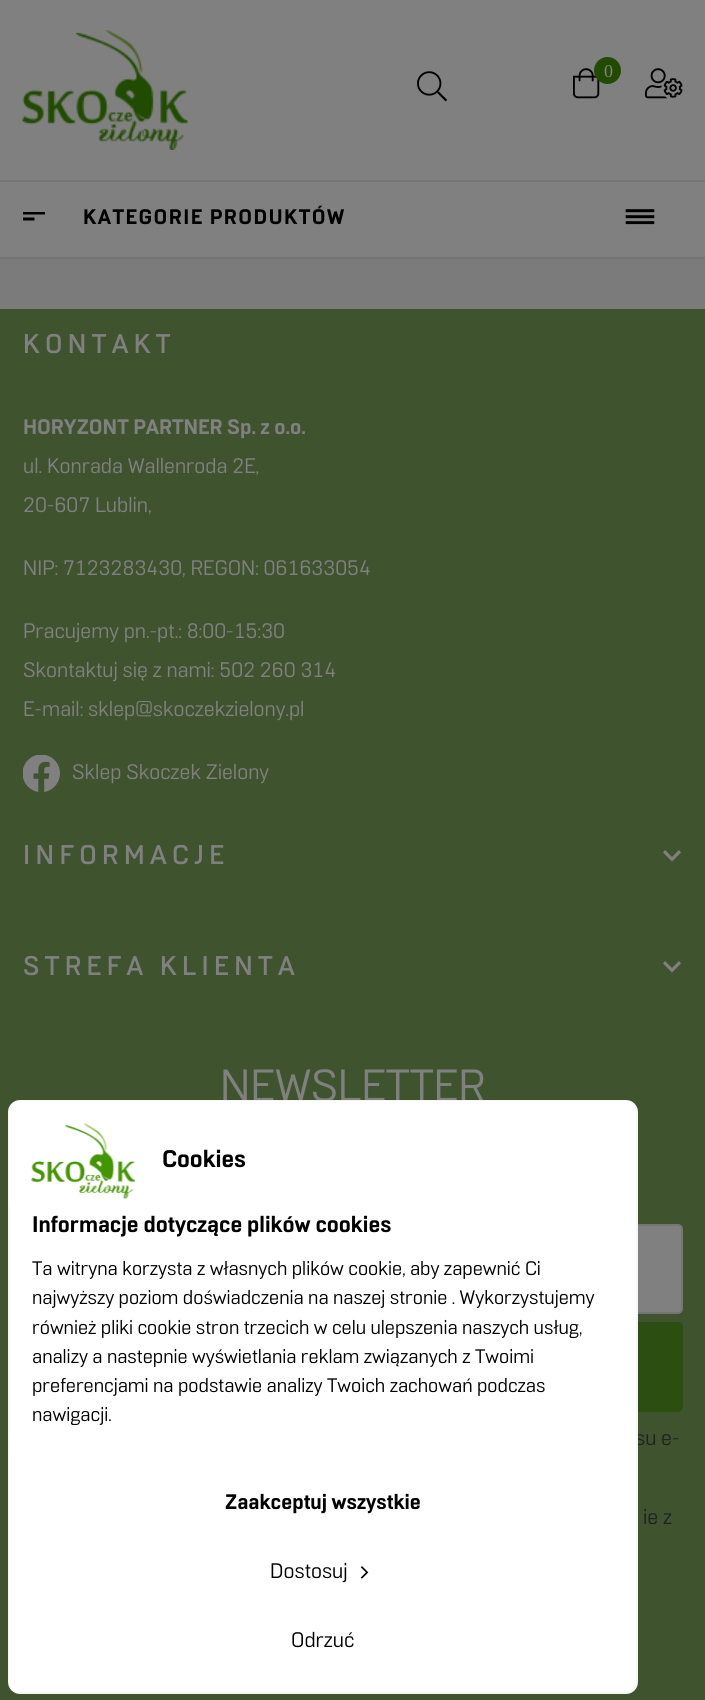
import math
import cairo

surface = cairo.ImageSurface(cairo.FORMAT_RGB24, 705, 1700)
ctx = cairo.Context(surface)
options = cairo.FontOptions()
options.set_hint_metrics(cairo.HINT_METRICS_OFF)
options.set_hint_style(cairo.HINT_STYLE_NONE)
ctx.set_font_options(options)
ctx.set_miter_limit(4)


def set_color(code):
    ctx.set_source_rgb(*(v / 255 for v in bytes.fromhex(code[-6:])))


def draw_text(x, y, s, family, size, color, bold=False, italic=False):
    ctx.select_font_face(family, cairo.FONT_SLANT_ITALIC if italic else cairo.FONT_SLANT_NORMAL, cairo.FONT_WEIGHT_BOLD if bold else cairo.FONT_WEIGHT_NORMAL)
    ctx.set_font_size(size)
    set_color(color)
    ctx.move_to(x, y)
    ctx.show_text(s)


def draw_spaced(x, y, s, letter, word):
    ctx.move_to(x, y)
    for ch in s:
        ctx.show_text(ch)
        ctx.rel_move_to(letter + word * (ch == ' '), 0)


def fill_rect(x, y, w, h, color):
    set_color(color)
    ctx.rectangle(x, y, w, h)
    ctx.fill()


def rounded_rect(x, y, w, h, r):
    ctx.new_sub_path()
    for i, (u, v) in enumerate([(x + w - r, y + h - r), (x + r, y + h - r), (x + r, y + r), (x + w - r, y + r)]):
        ctx.arc(u, v, r, i * math.pi / 2, (i + 1) * math.pi / 2)
    ctx.close_path()


def draw_image(path, x, y, w, h):
    ctx.save()
    ctx.set_source_surface(cairo.ImageSurface.create_from_png(path), x, y)
    ctx.rectangle(x, y, w, h)
    ctx.fill()
    ctx.restore()


set_color("#7b7b7b")
ctx.paint()
fill_rect(0, 0, 705, 257, "#808080")
fill_rect(0, 180, 705, 2, "#747474")
draw_image("assets/img1.png", 22, 30, 166, 120)
draw_image("assets/img2.png", 417, 71, 30, 31)
draw_image("assets/img3.png", 573, 68, 27, 31)
set_color("#224b02")
ctx.arc(607.5, 70.5, 13.5, 0, 2 * math.pi)
ctx.fill()
draw_text(604, 77, "0", "Liberation Serif", 18, "#808080")
draw_image("assets/img4.png", 645, 68, 38, 31)
fill_rect(0, 257, 705, 2, "#747474")
ctx.save()
ctx.rectangle(23, 212, 22, 9)
ctx.clip()
set_color("#000000")
ctx.set_fill_rule(cairo.FILL_RULE_EVEN_ODD)
ctx.new_path()
ctx.move_to(22.5, 214.5)
ctx.line_to(22.5, 211.5)
ctx.line_to(46.5, 211.5)
ctx.line_to(46.5, 214.5)
ctx.close_path()
ctx.move_to(34.5, 220.5)
ctx.line_to(22.5, 220.5)
ctx.line_to(22.5, 217.5)
ctx.line_to(34.5, 217.5)
ctx.close_path()
ctx.fill()
ctx.restore()
ctx.select_font_face("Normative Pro", cairo.FONT_SLANT_NORMAL, cairo.FONT_WEIGHT_BOLD)
ctx.set_font_size(21)
set_color("#000000")
draw_spaced(83, 224, "KATEGORIE PRODUKTÓW", 1.5, 0)
draw_text(622, 233, "☰", "Normative Pro Medium", 45, "#000000")
fill_rect(0, 309, 705, 1391, "#3f542e")
ctx.set_font_size(27)
set_color("#808080")
draw_spaced(23, 353, "KONTAKT", 5.4, 0)
draw_text(23, 434, "HORYZONT PARTNER Sp. z o.o.", "Normative Pro", 21, "#808080", bold=True)
draw_text(23, 473, "ul. Konrada Wallenroda 2E,", "Normative Pro", 21, "#808080")
draw_text(23, 512, "20-607 Lublin,", "Normative Pro", 21, "#808080")
draw_text(23, 575, "NIP: 7123283430, REGON: 061633054", "Normative Pro", 21, "#808080")
draw_text(23, 638, "Pracujemy pn.-pt.: 8:00-15:30", "Normative Pro", 21, "#808080")
draw_text(23, 677, "Skontaktuj się z nami: 502 260 314", "Normative Pro", 21, "#808080")
draw_text(23, 716, "E-mail: sklep@skoczekzielony.pl", "Normative Pro", 21, "#808080")
draw_image("assets/img5.png", 23, 755, 37, 37)
draw_text(72, 779, "Sklep Skoczek Zielony", "Normative Pro", 21, "#808080")
ctx.select_font_face("Normative Pro Medium")
ctx.set_font_size(27)
draw_spaced(23, 864, "INFORMACJE", 5.4, 0)
ctx.new_path()
ctx.move_to(665, 850)
ctx.line_to(672, 857)
ctx.line_to(679, 850)
ctx.line_to(681, 852.5)
ctx.line_to(672, 861.5)
ctx.line_to(663, 852.5)
ctx.close_path()
ctx.fill()
draw_spaced(23, 975, "STREFA KLIENTA", 5.4, 0)
ctx.new_path()
ctx.move_to(665, 961)
ctx.line_to(672, 968)
ctx.line_to(679, 961)
ctx.line_to(681, 963.5)
ctx.line_to(672, 972.5)
ctx.line_to(663, 963.5)
ctx.close_path()
ctx.fill()
draw_text(220, 1101, "NEWSLETTER", "Normative Pro", 45, "#808080")
rounded_rect(24, 1225, 658, 88, 4)
ctx.fill_preserve()
set_color("#757575")
ctx.stroke()
set_color("#2c4e11")
rounded_rect(23, 1322, 660, 90, 5)
ctx.fill()
draw_text(635, 1445, "su e-", "Normative Pro", 21, "#212121")
draw_text(643, 1524, "ie z", "Normative Pro", 21, "#212121")
set_color("#ffffff")
rounded_rect(9, 1101, 628, 592, 11)
ctx.fill_preserve()
set_color("#f6f6f6")
ctx.stroke()
set_color("#ffffff")
ctx.new_path()
ctx.move_to(20, 1101)
ctx.line_to(625, 1101)
ctx.curve_to(631, 1101, 636, 1106, 636, 1112)
ctx.line_to(636, 1206)
ctx.line_to(9, 1206)
ctx.line_to(9, 1112)
ctx.curve_to(9, 1106, 14, 1101, 20, 1101)
ctx.close_path()
ctx.fill()
draw_image("assets/img6.png", 31, 1123, 104, 76)
draw_text(162, 1167, "Cookies", "Normative Pro", 24, "#000000", bold=True)
draw_text(32, 1232, "Informacje dotyczące plików cookies", "Normative Pro", 22.5, "#000000", bold=True)
draw_text(32, 1275, "Ta witryna korzysta z własnych plików cookie, aby zapewnić Ci", "Normative Pro", 19.5, "#000000")
draw_text(32, 1304, "najwyższy poziom doświadczenia na naszej stronie . Wykorzystujemy", "Normative Pro", 19.5, "#000000")
draw_text(32, 1334, "również pliki cookie stron trzecich w celu ulepszenia naszych usług,", "Normative Pro", 19.5, "#000000")
draw_text(32, 1363, "analizy a nastepnie wyświetlania reklam związanych z Twoimi", "Normative Pro", 19.5, "#000000")
draw_text(32, 1392, "preferencjami na podstawie analizy Twoich zachowań podczas", "Normative Pro", 19.5, "#000000")
draw_text(32, 1421, "nawigacji.", "Normative Pro", 19.5, "#000000")
gradient = cairo.LinearGradient(323, 1692, 323, 1433)
gradient.add_color_stop_rgba(0.91, 1, 1, 1, 1)
gradient.add_color_stop_rgba(1, 1, 1, 1, 0)
ctx.set_source(gradient)
ctx.new_path()
ctx.move_to(9, 1433)
ctx.line_to(636, 1433)
ctx.line_to(636, 1681)
ctx.curve_to(636, 1687, 631, 1692, 625, 1692)
ctx.line_to(20, 1692)
ctx.curve_to(14, 1692, 9, 1687, 9, 1681)
ctx.close_path()
ctx.fill()
draw_text(225, 1509, "Zaakceptuj wszystkie", "Normative Pro", 21, "#000000", bold=True)
draw_text(270, 1578, "Dostosuj", "Normative Pro", 21, "#000000")
draw_image("assets/img7.png", 360, 1566, 9, 13)
draw_text(291, 1647, "Odrzuć", "Normative Pro", 21, "#000000")
surface.write_to_png("output.png")
